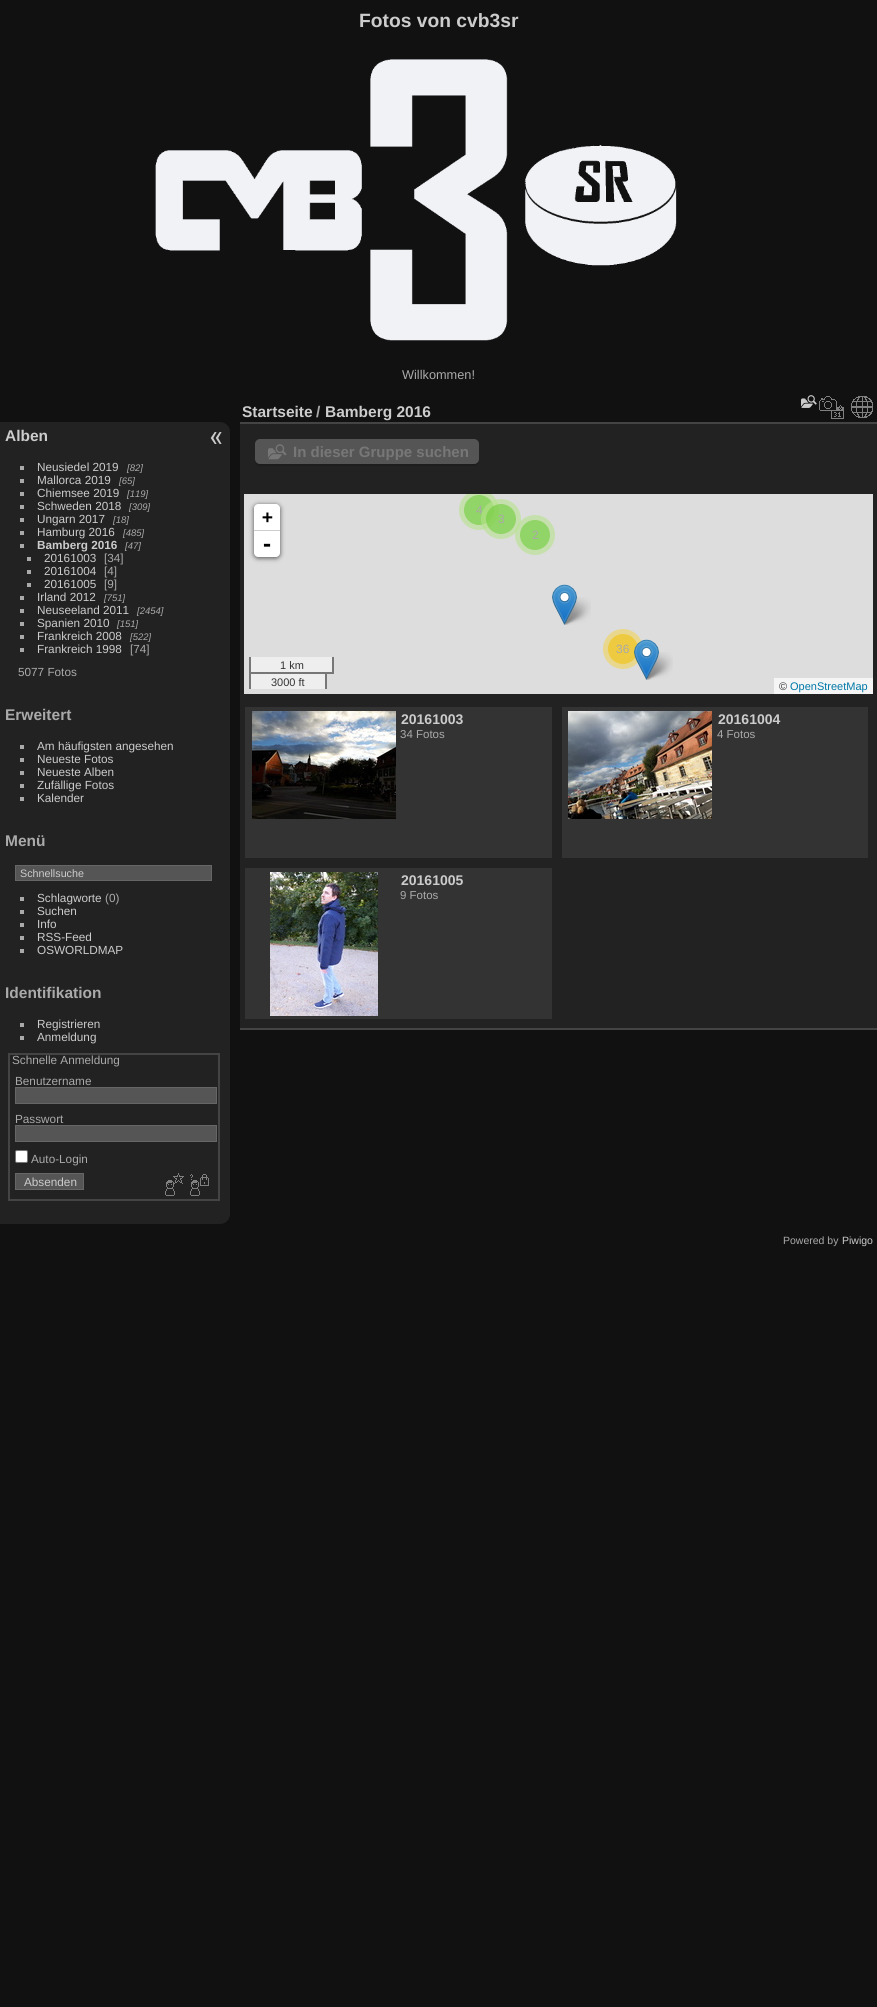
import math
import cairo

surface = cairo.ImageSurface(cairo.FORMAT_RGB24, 877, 2007)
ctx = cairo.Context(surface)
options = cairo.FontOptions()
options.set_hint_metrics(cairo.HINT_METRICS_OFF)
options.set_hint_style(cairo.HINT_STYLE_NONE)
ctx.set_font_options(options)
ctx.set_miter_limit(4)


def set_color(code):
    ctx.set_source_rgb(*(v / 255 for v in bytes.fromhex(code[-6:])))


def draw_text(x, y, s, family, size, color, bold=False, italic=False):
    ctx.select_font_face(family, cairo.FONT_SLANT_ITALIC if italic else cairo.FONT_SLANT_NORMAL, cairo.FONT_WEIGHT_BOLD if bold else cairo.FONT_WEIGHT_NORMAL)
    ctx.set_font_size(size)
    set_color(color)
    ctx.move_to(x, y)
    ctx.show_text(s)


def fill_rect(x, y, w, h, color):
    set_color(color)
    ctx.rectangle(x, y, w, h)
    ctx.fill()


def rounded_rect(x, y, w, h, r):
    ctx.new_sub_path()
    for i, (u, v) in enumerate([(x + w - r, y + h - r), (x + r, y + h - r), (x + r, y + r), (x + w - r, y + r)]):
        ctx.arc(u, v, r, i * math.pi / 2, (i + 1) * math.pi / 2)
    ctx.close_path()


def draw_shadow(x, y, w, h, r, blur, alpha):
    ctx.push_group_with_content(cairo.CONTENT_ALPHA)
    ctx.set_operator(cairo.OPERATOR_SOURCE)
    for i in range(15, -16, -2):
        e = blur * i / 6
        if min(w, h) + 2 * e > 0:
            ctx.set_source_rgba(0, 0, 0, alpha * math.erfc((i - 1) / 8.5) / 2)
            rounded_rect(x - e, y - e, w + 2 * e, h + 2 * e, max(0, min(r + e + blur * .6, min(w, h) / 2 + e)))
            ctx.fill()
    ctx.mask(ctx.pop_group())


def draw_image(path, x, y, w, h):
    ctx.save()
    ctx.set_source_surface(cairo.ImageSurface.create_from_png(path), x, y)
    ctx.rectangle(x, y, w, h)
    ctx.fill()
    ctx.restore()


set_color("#111111")
ctx.paint()
draw_text(359, 27, "Fotos von cvb3sr", "Liberation Sans", 19.25, "#cccccc", bold=True)
draw_image("assets/img1.png", 155, 59, 522, 282)
draw_text(402, 379, "Willkommen!", "Liberation Sans", 12.75, "#aaaaaa")
set_color("#222222")
ctx.new_path()
ctx.move_to(0, 422)
ctx.line_to(220, 422)
ctx.curve_to(225.5, 422, 230, 426.5, 230, 432)
ctx.line_to(230, 1214)
ctx.curve_to(230, 1219.5, 225.5, 1224, 220, 1224)
ctx.line_to(0, 1224)
ctx.close_path()
ctx.fill()
draw_text(5, 441, "Alben", "Liberation Sans", 15.5, "#cccccc", bold=True)
fill_rect(20, 466, 4, 4, "#aaaaaa")
draw_text(37, 471, "Neusiedel 2019", "Liberation Sans", 11.75, "#cccccc")
draw_text(127, 471, "[82]", "Liberation Sans", 9.5, "#aaaaaa", italic=True)
fill_rect(20, 479, 4, 4, "#aaaaaa")
draw_text(37, 484, "Mallorca 2019", "Liberation Sans", 11.75, "#cccccc")
draw_text(119, 484, "[65]", "Liberation Sans", 9.5, "#aaaaaa", italic=True)
fill_rect(20, 492, 4, 4, "#aaaaaa")
draw_text(37, 497, "Chiemsee 2019", "Liberation Sans", 11.75, "#cccccc")
draw_text(127, 497, "[119]", "Liberation Sans", 9.5, "#aaaaaa", italic=True)
fill_rect(20, 505, 4, 4, "#aaaaaa")
draw_text(37, 510, "Schweden 2018", "Liberation Sans", 11.75, "#cccccc")
draw_text(129, 510, "[309]", "Liberation Sans", 9.5, "#aaaaaa", italic=True)
fill_rect(20, 518, 4, 4, "#aaaaaa")
draw_text(37, 523, "Ungarn 2017", "Liberation Sans", 11.75, "#cccccc")
draw_text(113, 523, "[18]", "Liberation Sans", 9.5, "#aaaaaa", italic=True)
fill_rect(20, 531, 4, 4, "#aaaaaa")
draw_text(37, 536, "Hamburg 2016", "Liberation Sans", 11.75, "#cccccc")
draw_text(123, 536, "[485]", "Liberation Sans", 9.5, "#aaaaaa", italic=True)
fill_rect(20, 544, 4, 4, "#aaaaaa")
draw_text(37, 549, "Bamberg 2016", "Liberation Sans", 11.75, "#cccccc", bold=True)
draw_text(125, 549, "[47]", "Liberation Sans", 9.5, "#aaaaaa", italic=True)
fill_rect(27, 557, 4, 4, "#aaaaaa")
draw_text(44, 562, "20161003", "Liberation Sans", 11.75, "#cccccc")
draw_text(104, 562, "[34]", "Liberation Sans", 11.75, "#aaaaaa")
fill_rect(27, 570, 4, 4, "#aaaaaa")
draw_text(44, 575, "20161004", "Liberation Sans", 11.75, "#cccccc")
draw_text(104, 575, "[4]", "Liberation Sans", 11.75, "#aaaaaa")
fill_rect(27, 583, 4, 4, "#aaaaaa")
draw_text(44, 588, "20161005", "Liberation Sans", 11.75, "#cccccc")
draw_text(104, 588, "[9]", "Liberation Sans", 11.75, "#aaaaaa")
fill_rect(20, 596, 4, 4, "#aaaaaa")
draw_text(37, 601, "Irland 2012", "Liberation Sans", 11.75, "#cccccc")
draw_text(104, 601, "[751]", "Liberation Sans", 9.5, "#aaaaaa", italic=True)
fill_rect(20, 609, 4, 4, "#aaaaaa")
draw_text(37, 614, "Neuseeland 2011", "Liberation Sans", 11.75, "#cccccc")
draw_text(137, 614, "[2454]", "Liberation Sans", 9.5, "#aaaaaa", italic=True)
fill_rect(20, 622, 4, 4, "#aaaaaa")
draw_text(37, 627, "Spanien 2010", "Liberation Sans", 11.75, "#cccccc")
draw_text(117, 627, "[151]", "Liberation Sans", 9.5, "#aaaaaa", italic=True)
fill_rect(20, 635, 4, 4, "#aaaaaa")
draw_text(37, 640, "Frankreich 2008", "Liberation Sans", 11.75, "#cccccc")
draw_text(130, 640, "[522]", "Liberation Sans", 9.5, "#aaaaaa", italic=True)
fill_rect(20, 648, 4, 4, "#aaaaaa")
draw_text(37, 653, "Frankreich 1998", "Liberation Sans", 11.75, "#cccccc")
draw_text(130, 653, "[74]", "Liberation Sans", 11.75, "#aaaaaa")
draw_text(18, 676, "5077 Fotos", "Liberation Sans", 11.75, "#aaaaaa")
draw_text(5, 720, "Erweitert", "Liberation Sans", 15.5, "#aaaaaa", bold=True)
fill_rect(20, 745, 4, 4, "#aaaaaa")
draw_text(37, 750, "Am häufigsten angesehen", "Liberation Sans", 11.75, "#cccccc")
fill_rect(20, 758, 4, 4, "#aaaaaa")
draw_text(37, 763, "Neueste Fotos", "Liberation Sans", 11.75, "#cccccc")
fill_rect(20, 771, 4, 4, "#aaaaaa")
draw_text(37, 776, "Neueste Alben", "Liberation Sans", 11.75, "#cccccc")
fill_rect(20, 784, 4, 4, "#aaaaaa")
draw_text(37, 789, "Zufällige Fotos", "Liberation Sans", 11.75, "#cccccc")
fill_rect(20, 797, 4, 4, "#aaaaaa")
draw_text(37, 802, "Kalender", "Liberation Sans", 11.75, "#cccccc")
draw_text(5, 846, "Menü", "Liberation Sans", 15.5, "#aaaaaa", bold=True)
set_color("#555555")
ctx.rectangle(15.5, 865.5, 196, 15)
ctx.fill_preserve()
set_color("#666666")
ctx.set_line_width(1)
ctx.stroke()
draw_text(20, 877, "Schnellsuche", "Liberation Sans", 10.75, "#cccccc")
fill_rect(20, 897, 4, 4, "#aaaaaa")
draw_text(37, 902, "Schlagworte", "Liberation Sans", 11.75, "#cccccc")
draw_text(105, 902, "(0)", "Liberation Sans", 11.75, "#aaaaaa")
fill_rect(20, 910, 4, 4, "#aaaaaa")
draw_text(37, 915, "Suchen", "Liberation Sans", 11.75, "#cccccc")
fill_rect(20, 923, 4, 4, "#aaaaaa")
draw_text(37, 928, "Info", "Liberation Sans", 11.75, "#cccccc")
fill_rect(20, 936, 4, 4, "#aaaaaa")
draw_text(37, 941, "RSS-Feed", "Liberation Sans", 11.75, "#cccccc")
fill_rect(20, 949, 4, 4, "#aaaaaa")
draw_text(37, 954, "OSWORLDMAP", "Liberation Sans", 11.75, "#cccccc")
draw_text(5, 998, "Identifikation", "Liberation Sans", 15.5, "#aaaaaa", bold=True)
fill_rect(20, 1023, 4, 4, "#aaaaaa")
draw_text(37, 1028, "Registrieren", "Liberation Sans", 11.75, "#cccccc")
fill_rect(20, 1036, 4, 4, "#aaaaaa")
draw_text(37, 1041, "Anmeldung", "Liberation Sans", 11.75, "#cccccc")
ctx.rectangle(9, 1054, 210, 146)
set_color("#444444")
ctx.set_line_width(2)
ctx.stroke()
draw_text(12, 1064, "Schnelle Anmeldung", "Liberation Sans", 11.75, "#aaaaaa")
draw_text(15, 1085, "Benutzername", "Liberation Sans", 11.75, "#aaaaaa")
set_color("#555555")
ctx.rectangle(15.5, 1087.5, 201, 16)
ctx.fill_preserve()
set_color("#666666")
ctx.set_line_width(1)
ctx.stroke()
draw_text(15, 1123, "Passwort", "Liberation Sans", 11.75, "#aaaaaa")
set_color("#555555")
ctx.rectangle(15.5, 1125.5, 201, 16)
ctx.fill_preserve()
set_color("#666666")
ctx.stroke()
set_color("#ffffff")
rounded_rect(15.5, 1150.5, 12, 12, 1.5)
ctx.fill_preserve()
set_color("#767676")
ctx.stroke()
draw_text(31, 1163, "Auto-Login", "Liberation Sans", 11.75, "#aaaaaa")
set_color("#555555")
ctx.rectangle(15.5, 1173.5, 68, 16)
ctx.fill_preserve()
set_color("#666666")
ctx.stroke()
draw_text(24, 1186, "Absenden", "Liberation Sans", 11.75, "#cccccc")
draw_image("assets/img2.png", 165, 1173, 19, 23)
draw_image("assets/img3.png", 190, 1174, 19, 22)
draw_image("assets/img4.png", 210, 432, 12, 12)
fill_rect(240, 424, 637, 604, "#222222")
fill_rect(240, 1028, 637, 2, "#444444")
fill_rect(240, 422, 637, 2, "#444444")
draw_text(242, 417, "Startseite", "Liberation Sans", 15.5, "#cccccc", bold=True)
draw_text(316, 417, "/", "Liberation Sans", 15.5, "#aaaaaa", bold=True)
draw_text(325, 417, "Bamberg 2016", "Liberation Sans", 15.5, "#cccccc", bold=True)
draw_image("assets/img5.png", 801, 395, 16, 13)
draw_image("assets/img6.png", 819, 396, 25, 23)
draw_image("assets/img7.png", 851, 396, 22, 22)
set_color("#1d1d1d")
ctx.new_path()
ctx.move_to(255, 459)
ctx.line_to(255, 461)
ctx.curve_to(255, 464, 257, 466, 260, 466)
ctx.line_to(474, 466)
ctx.curve_to(477, 466, 479, 464, 479, 461)
ctx.line_to(479, 459)
ctx.curve_to(479, 462, 477, 464, 474, 464)
ctx.line_to(260, 464)
ctx.curve_to(257, 464, 255, 462, 255, 459)
ctx.close_path()
ctx.fill()
set_color("#555555")
rounded_rect(255, 439, 224, 25, 5)
ctx.fill()
draw_image("assets/img8.png", 268, 444, 19, 16)
draw_text(293, 457, "In dieser Gruppe suchen", "Liberation Sans", 15, "#777777", bold=True)
fill_rect(244, 494, 629, 200, "#dddddd")
fill_rect(251, 674, 74, 15, "#eeeeee")
ctx.save()
ctx.rectangle(244, 494, 629, 200)
ctx.clip()
set_color("#c5e0ac")
ctx.arc(479, 510, 20, 0, 2 * math.pi)
ctx.fill()
ctx.restore()
set_color("#91d467")
ctx.arc(479, 510, 15, 0, 2 * math.pi)
ctx.fill()
draw_text(476, 514, "4", "Liberation Sans", 12, "#aaaaaa")
ctx.set_source_rgba(0.71, 0.886, 0.549, 0.6)
ctx.new_path()
ctx.arc(501, 519, 20, 0, 2 * math.pi)
ctx.fill()
ctx.set_source_rgba(0.431, 0.8, 0.224, 0.6)
ctx.arc(501, 519, 15, 0, 2 * math.pi)
ctx.fill()
draw_text(498, 523, "3", "Liberation Sans", 12, "#aaaaaa")
ctx.set_source_rgba(0.71, 0.886, 0.549, 0.6)
ctx.new_path()
ctx.arc(535, 535, 20, 0, 2 * math.pi)
ctx.fill()
set_color("#91d467")
ctx.arc(535, 535, 15, 0, 2 * math.pi)
ctx.fill()
draw_text(532, 539, "2", "Liberation Sans", 12, "#aaaaaa")
draw_image("assets/img11.png", 562, 597, 29, 28)
draw_image("assets/img9.png", 552, 584, 25, 41)
set_color("#e9d78d")
ctx.arc(623, 649, 20, 0, 2 * math.pi)
ctx.fill()
set_color("#edca40")
ctx.arc(623, 649, 15, 0, 2 * math.pi)
ctx.fill()
draw_text(616, 653, "36", "Liberation Sans", 12, "#aaaaaa")
draw_image("assets/img11.png", 644, 652, 29, 28)
draw_image("assets/img10.png", 634, 639, 25, 41)
set_color("#000000")
draw_shadow(254, 505, 26, 53, 4, 2.5, 0.65)
set_color("#ffffff")
ctx.new_path()
ctx.move_to(258, 504)
ctx.line_to(276, 504)
ctx.curve_to(278, 504, 280, 506, 280, 508)
ctx.line_to(280, 531)
ctx.line_to(254, 531)
ctx.line_to(254, 508)
ctx.curve_to(254, 506, 256, 504, 258, 504)
ctx.close_path()
ctx.fill()
fill_rect(254, 530, 26, 1, "#cccccc")
draw_text(262, 523, "+", "DejaVu Sans Mono", 18, "#000000", bold=True)
set_color("#ffffff")
ctx.new_path()
ctx.move_to(254, 531)
ctx.line_to(280, 531)
ctx.line_to(280, 553)
ctx.curve_to(280, 555, 278, 557, 276, 557)
ctx.line_to(258, 557)
ctx.curve_to(256, 557, 254, 555, 254, 553)
ctx.close_path()
ctx.fill()
draw_text(261, 551, "-", "DejaVu Sans Mono", 20, "#000000", bold=True)
fill_rect(251, 657, 81, 15, "#eeeeee")
fill_rect(332, 657, 2, 17, "#777777")
fill_rect(327, 672, 7, 2, "#777777")
fill_rect(249, 657, 2, 17, "#777777")
draw_text(280, 669, "1 km", "Liberation Sans", 11, "#333333")
fill_rect(249, 672, 78, 2, "#777777")
fill_rect(325, 672, 2, 17, "#777777")
fill_rect(249, 672, 2, 17, "#777777")
draw_text(271, 686, "3000 ft", "Liberation Sans", 11, "#333333")
fill_rect(774, 678, 99, 16, "#f5f5f5")
draw_text(779, 690, "©", "Liberation Sans", 11, "#333333")
draw_text(790, 690, "OpenStreetMap", "Liberation Sans", 11, "#0078a8")
fill_rect(245, 707, 307, 151, "#333333")
draw_image("assets/img12.png", 252, 711, 144, 108)
draw_text(401, 724, "20161003", "Liberation Sans", 14, "#cccccc", bold=True)
draw_text(400, 738, "34 Fotos", "Liberation Sans", 11.5, "#aaaaaa")
fill_rect(562, 707, 306, 151, "#333333")
draw_image("assets/img13.png", 568, 711, 144, 108)
draw_text(718, 724, "20161004", "Liberation Sans", 14, "#cccccc", bold=True)
draw_text(717, 738, "4 Fotos", "Liberation Sans", 11.5, "#aaaaaa")
fill_rect(245, 868, 307, 151, "#333333")
draw_image("assets/img14.png", 270, 872, 108, 144)
draw_text(401, 885, "20161005", "Liberation Sans", 14, "#cccccc", bold=True)
draw_text(400, 899, "9 Fotos", "Liberation Sans", 11.5, "#aaaaaa")
draw_text(783, 1244, "Powered by", "Liberation Sans", 10.5, "#aaaaaa")
draw_text(842, 1244, "Piwigo", "Liberation Sans", 10.5, "#cccccc")
surface.write_to_png("output.png")
